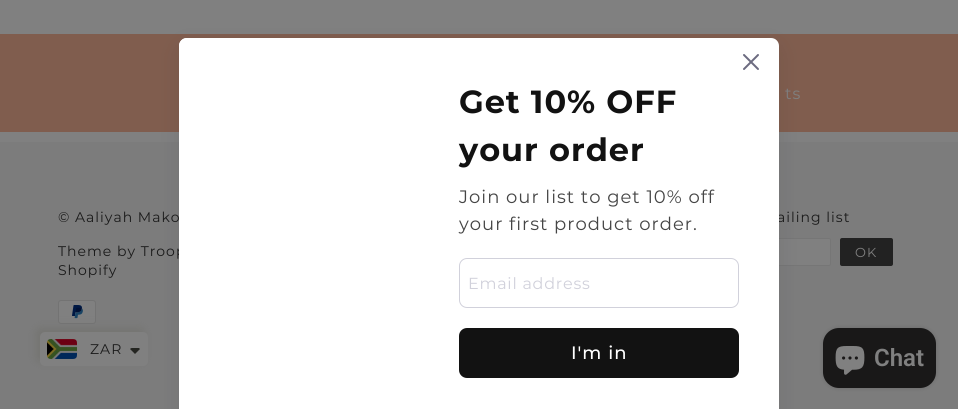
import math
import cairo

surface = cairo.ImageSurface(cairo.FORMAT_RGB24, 958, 409)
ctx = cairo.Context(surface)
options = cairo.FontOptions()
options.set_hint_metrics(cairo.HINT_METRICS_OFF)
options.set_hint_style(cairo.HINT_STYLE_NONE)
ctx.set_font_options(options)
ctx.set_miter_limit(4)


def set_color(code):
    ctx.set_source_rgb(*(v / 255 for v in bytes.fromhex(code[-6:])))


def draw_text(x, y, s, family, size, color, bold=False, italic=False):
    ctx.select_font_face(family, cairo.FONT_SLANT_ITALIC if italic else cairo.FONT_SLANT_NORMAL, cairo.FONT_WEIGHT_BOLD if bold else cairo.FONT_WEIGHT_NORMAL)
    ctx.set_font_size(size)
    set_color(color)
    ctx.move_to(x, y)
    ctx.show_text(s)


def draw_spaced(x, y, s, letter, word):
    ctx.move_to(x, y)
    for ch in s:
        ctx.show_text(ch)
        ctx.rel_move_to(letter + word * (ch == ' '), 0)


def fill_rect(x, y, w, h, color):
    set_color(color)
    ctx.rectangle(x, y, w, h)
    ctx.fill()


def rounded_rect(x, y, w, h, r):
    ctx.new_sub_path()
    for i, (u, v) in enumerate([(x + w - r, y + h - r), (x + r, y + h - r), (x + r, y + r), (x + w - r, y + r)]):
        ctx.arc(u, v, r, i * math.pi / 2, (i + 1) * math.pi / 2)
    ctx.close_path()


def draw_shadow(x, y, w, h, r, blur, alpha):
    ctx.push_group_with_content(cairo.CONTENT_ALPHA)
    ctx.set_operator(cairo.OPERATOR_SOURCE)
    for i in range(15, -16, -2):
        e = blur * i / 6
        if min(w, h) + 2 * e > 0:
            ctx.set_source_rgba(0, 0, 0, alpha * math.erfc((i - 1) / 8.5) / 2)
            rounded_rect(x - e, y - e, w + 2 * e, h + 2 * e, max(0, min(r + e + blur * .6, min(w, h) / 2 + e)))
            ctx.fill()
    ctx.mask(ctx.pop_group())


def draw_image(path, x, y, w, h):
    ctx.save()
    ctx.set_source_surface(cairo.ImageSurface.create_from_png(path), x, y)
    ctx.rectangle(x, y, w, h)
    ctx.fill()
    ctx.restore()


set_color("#808080")
ctx.paint()
fill_rect(0, 34, 958, 98, "#805d4e")
ctx.select_font_face("Montserrat")
ctx.set_font_size(16)
set_color("#808080")
draw_spaced(785, 99, "ts", 1, 0)
fill_rect(0, 142, 958, 267, "#7c7c7c")
ctx.set_font_size(14)
set_color("#1a1a1a")
draw_spaced(58, 222, "© Aaliyah Mako", 1, 0)
draw_spaced(58, 256, "Theme by Troop", 1, 0)
draw_spaced(58, 275, "Shopify", 1, 0)
draw_image("assets/img1.png", 58, 300, 38, 24)
draw_spaced(777, 222, "ailing list", 1, 0)
set_color("#808080")
rounded_rect(643.5, 238.5, 187, 27, 1.5)
ctx.fill_preserve()
set_color("#767676")
ctx.set_line_width(1)
ctx.stroke()
set_color("#222222")
rounded_rect(840, 238, 53, 28, 2)
ctx.fill()
ctx.set_font_size(13)
set_color("#808080")
draw_spaced(855, 257, "OK", 1, 0)
set_color("#747471")
draw_shadow(36, 328, 108, 34, 5, 4.5, 1)
set_color("#808080")
rounded_rect(40, 332, 108, 34, 5)
ctx.fill()
draw_image("assets/img2.png", 47, 339, 30, 20)
ctx.set_font_size(14)
set_color("#1a1a1a")
draw_spaced(90, 354, "ZAR", 1, 0)
set_color("#242521")
ctx.new_path()
ctx.move_to(132, 348)
ctx.curve_to(131, 348, 130.5, 348.5, 130, 349)
ctx.line_to(135, 354)
ctx.line_to(140, 349)
ctx.line_to(139, 348)
ctx.close_path()
ctx.fill()
set_color("#121127")
draw_shadow(179, 46, 600, 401, 8, 10, 0.1)
set_color("#ffffff")
ctx.new_path()
ctx.move_to(187, 38)
ctx.line_to(771, 38)
ctx.curve_to(775.5, 38, 779, 41.5, 779, 46)
ctx.line_to(779, 409)
ctx.line_to(179, 409)
ctx.line_to(179, 46)
ctx.curve_to(179, 41.5, 182.5, 38, 187, 38)
ctx.close_path()
ctx.fill()
ctx.new_path()
ctx.move_to(187, 38)
ctx.line_to(419, 38)
ctx.line_to(419, 409)
ctx.line_to(179, 409)
ctx.line_to(179, 46)
ctx.curve_to(179, 41.5, 182.5, 38, 187, 38)
ctx.close_path()
ctx.fill()
draw_image("assets/img3.png", 743, 54, 16, 16)
ctx.select_font_face("Montserrat", cairo.FONT_SLANT_NORMAL, cairo.FONT_WEIGHT_BOLD)
ctx.set_font_size(32)
set_color("#121212")
draw_spaced(459, 113, "Get 10% OFF", 1, 0)
draw_spaced(459, 161, "your order", 1, 0)
ctx.select_font_face("Montserrat")
ctx.set_font_size(18)
set_color("#454545")
draw_spaced(459, 203, "Join our list to get 10% off", 1, 0)
draw_spaced(459, 230, "your first product order.", 1, 0)
rounded_rect(459.5, 258.5, 279, 49, 7.5)
set_color("#d1d1db")
ctx.stroke()
ctx.set_font_size(16)
draw_spaced(468, 289, "Email address", 0.75, 0)
set_color("#121212")
rounded_rect(459, 328, 280, 50, 8)
ctx.fill()
ctx.select_font_face("Montserrat Medium")
ctx.set_font_size(18)
set_color("#ffffff")
draw_spaced(571, 359, "I'm in", 1, 0)
set_color("#000000")
draw_shadow(823, 328, 113, 60, 16, 2.5, 0.15)
set_color("#191818")
rounded_rect(823, 328, 113, 60, 16)
ctx.fill()
draw_image("assets/img4.png", 835, 346, 30, 29)
draw_text(874, 366, "Chat", "Roboto SemiBold", 24, "#808080")
surface.write_to_png("output.png")
